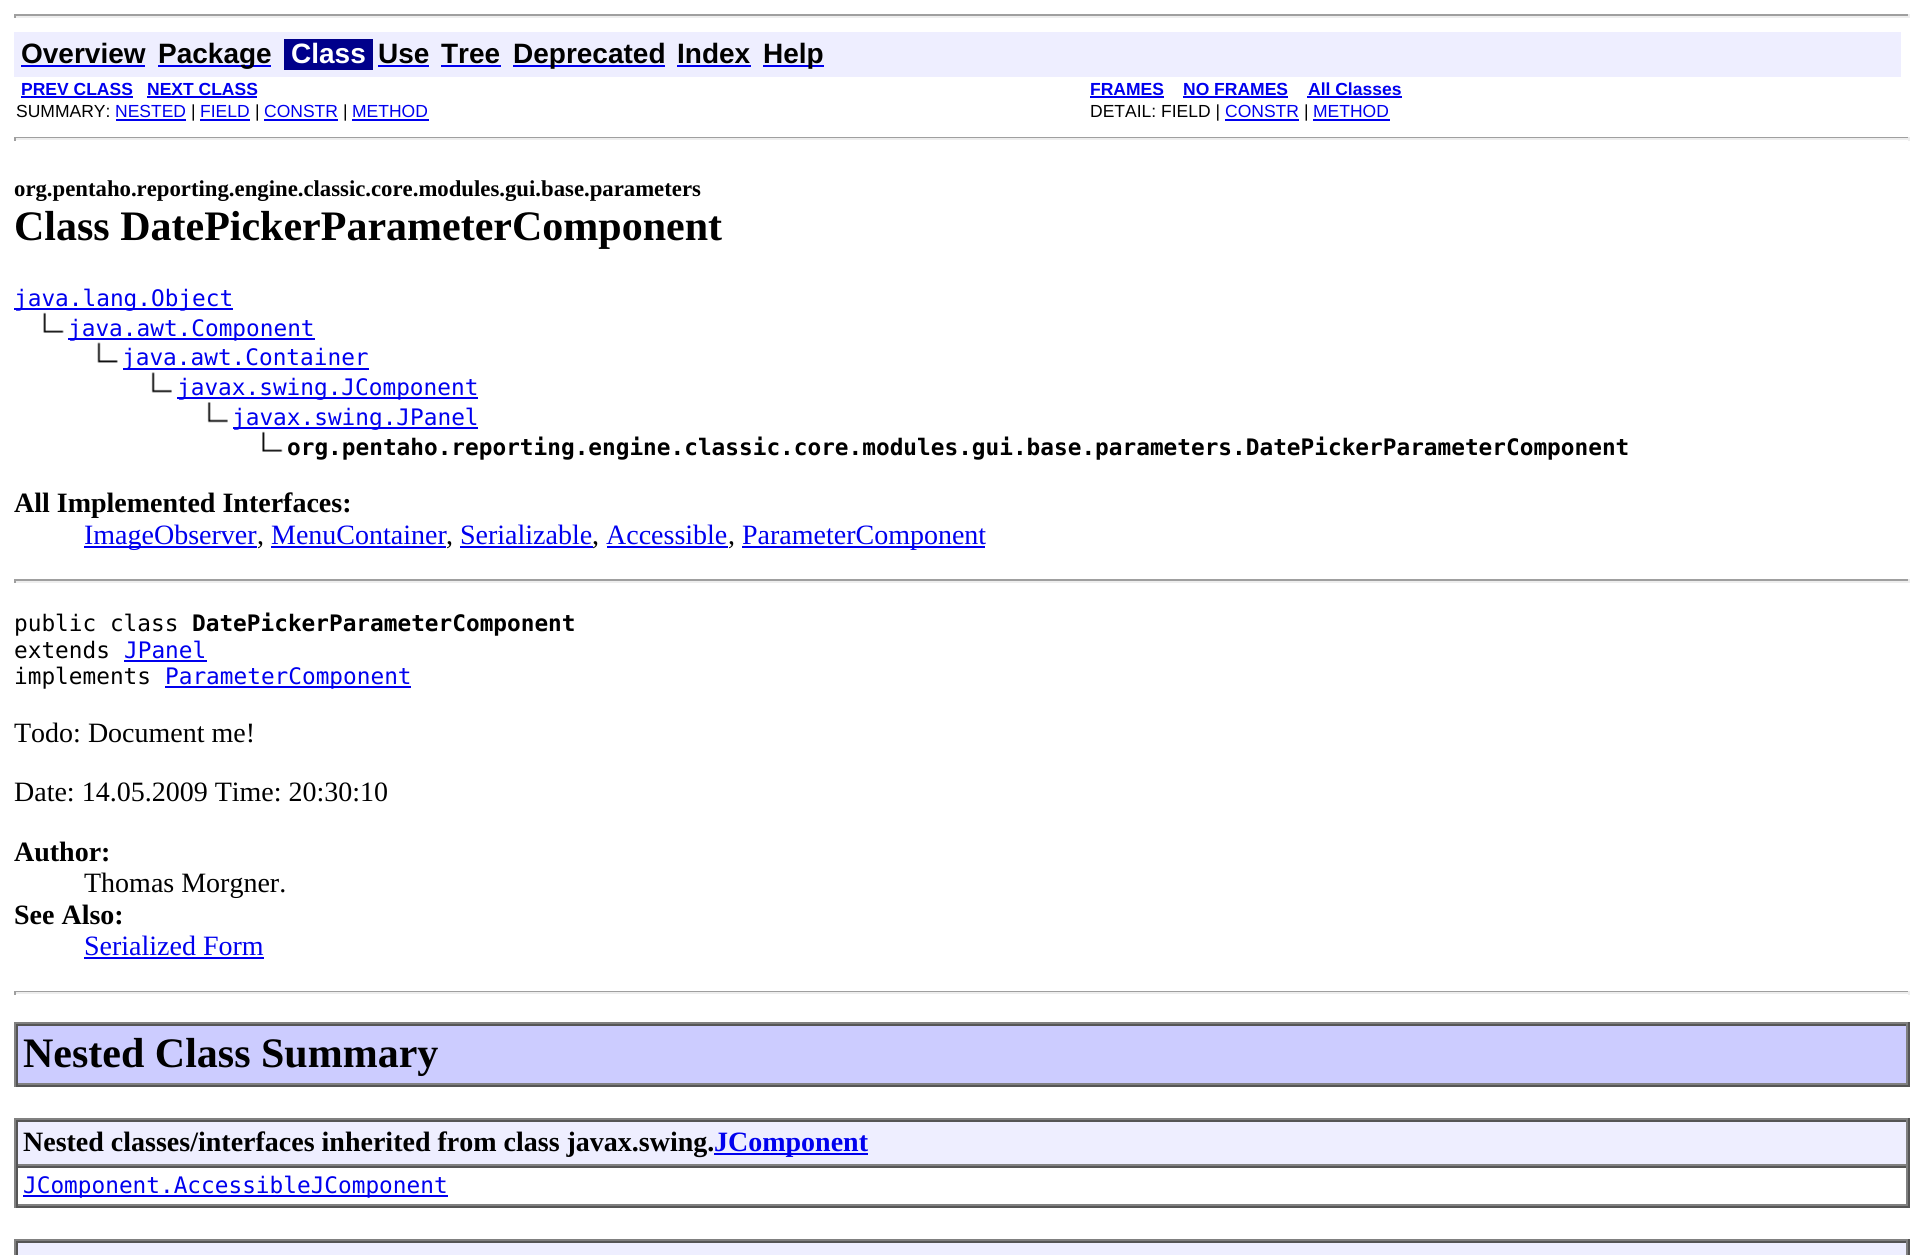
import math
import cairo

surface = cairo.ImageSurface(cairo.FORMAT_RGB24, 1922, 1255)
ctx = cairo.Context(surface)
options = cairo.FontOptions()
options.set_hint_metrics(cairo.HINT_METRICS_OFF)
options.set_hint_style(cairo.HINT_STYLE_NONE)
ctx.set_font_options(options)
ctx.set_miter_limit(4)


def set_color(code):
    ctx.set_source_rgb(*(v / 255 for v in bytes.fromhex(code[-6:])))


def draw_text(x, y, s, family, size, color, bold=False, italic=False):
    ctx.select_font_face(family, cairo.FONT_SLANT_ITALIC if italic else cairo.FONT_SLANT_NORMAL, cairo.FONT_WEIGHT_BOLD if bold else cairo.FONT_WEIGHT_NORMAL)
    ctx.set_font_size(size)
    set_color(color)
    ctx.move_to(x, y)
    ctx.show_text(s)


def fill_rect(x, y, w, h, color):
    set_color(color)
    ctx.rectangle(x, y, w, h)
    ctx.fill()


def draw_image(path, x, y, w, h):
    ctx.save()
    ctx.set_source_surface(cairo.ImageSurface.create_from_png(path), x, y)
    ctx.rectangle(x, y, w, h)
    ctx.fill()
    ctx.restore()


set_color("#ffffff")
ctx.paint()
fill_rect(14, 14, 1895, 2, "#9f9f9f")
fill_rect(1908, 14, 2, 4, "#eeeeee")
fill_rect(14, 16, 1895, 2, "#eeeeee")
fill_rect(14, 14, 2, 4, "#9f9f9f")
fill_rect(14, 32, 1887, 45, "#eeeeff")
draw_text(21, 63, "Overview", "Liberation Sans", 28, "#000000", bold=True)
fill_rect(21, 65, 124, 2, "#0000ee")
fill_rect(158, 65, 113, 2, "#0000ee")
draw_text(158, 63, "Package", "Liberation Sans", 28, "#000000", bold=True)
fill_rect(284, 39, 89, 31, "#00008b")
draw_text(291, 63, "Class", "Liberation Sans", 28, "#ffffff", bold=True)
draw_text(378, 63, "Use", "Liberation Sans", 28, "#000000", bold=True)
fill_rect(378, 65, 51, 2, "#0000ee")
draw_text(441, 63, "Tree", "Liberation Sans", 28, "#000000", bold=True)
fill_rect(441, 65, 60, 2, "#0000ee")
fill_rect(513, 65, 152, 2, "#0000ee")
draw_text(513, 63, "Deprecated", "Liberation Sans", 28, "#000000", bold=True)
draw_text(677, 63, "Index", "Liberation Sans", 28, "#000000", bold=True)
fill_rect(677, 65, 74, 2, "#0000ee")
fill_rect(763, 65, 61, 2, "#0000ee")
draw_text(763, 63, "Help", "Liberation Sans", 28, "#000000", bold=True)
draw_text(21, 95, "PREV CLASS", "Liberation Sans", 17.5, "#0000ee", bold=True)
fill_rect(21, 96, 112, 2, "#0000ee")
draw_text(147, 95, "NEXT CLASS", "Liberation Sans", 17.5, "#0000ee", bold=True)
fill_rect(147, 96, 110, 2, "#0000ee")
draw_text(1090, 95, "FRAMES", "Liberation Sans", 17.5, "#0000ee", bold=True)
fill_rect(1090, 96, 74, 2, "#0000ee")
draw_text(1183, 95, "NO FRAMES", "Liberation Sans", 17.5, "#0000ee", bold=True)
fill_rect(1183, 96, 105, 2, "#0000ee")
draw_text(1308, 95, "All Classes", "Liberation Sans", 17.5, "#0000ee", bold=True)
fill_rect(1307, 96, 95, 2, "#0000ee")
draw_text(16, 117, "SUMMARY:", "Liberation Sans", 17.5, "#000000")
draw_text(115, 117, "NESTED", "Liberation Sans", 17.5, "#0000ee")
fill_rect(116, 119, 70, 2, "#0000ee")
draw_text(191, 117, "|", "Liberation Sans", 17.5, "#000000")
draw_text(200, 117, "FIELD", "Liberation Sans", 17.5, "#0000ee")
fill_rect(200, 119, 50, 2, "#0000ee")
draw_text(255, 117, "|", "Liberation Sans", 17.5, "#000000")
draw_text(264, 117, "CONSTR", "Liberation Sans", 17.5, "#0000ee")
fill_rect(264, 119, 74, 2, "#0000ee")
draw_text(343, 117, "|", "Liberation Sans", 17.5, "#000000")
draw_text(352, 117, "METHOD", "Liberation Sans", 17.5, "#0000ee")
fill_rect(352, 119, 77, 2, "#0000ee")
draw_text(1090, 117, "DETAIL: FIELD |", "Liberation Sans", 17.5, "#000000")
draw_text(1225, 117, "CONSTR", "Liberation Sans", 17.5, "#0000ee")
fill_rect(1225, 119, 74, 2, "#0000ee")
draw_text(1304, 117, "|", "Liberation Sans", 17.5, "#000000")
draw_text(1313, 117, "METHOD", "Liberation Sans", 17.5, "#0000ee")
fill_rect(1313, 119, 77, 2, "#0000ee")
fill_rect(14, 137, 1895, 1, "#9f9f9f")
fill_rect(1908, 137, 2, 4, "#eeeeee")
fill_rect(14, 138, 1895, 2, "#eeeeee")
fill_rect(14, 137, 2, 4, "#9f9f9f")
draw_text(14, 196, "org.pentaho.reporting.engine.classic.core.modules.gui.base.parameters", "Liberation Serif", 22.75, "#000000", bold=True)
draw_text(14, 240, "Class DatePickerParameterComponent", "Liberation Serif", 42, "#000000", bold=True)
fill_rect(14, 308, 219, 2, "#0000ee")
draw_text(14, 306, "java.lang.Object", "DejaVu Sans Mono", 22.75, "#0000ee")
draw_image("assets/img1.png", 43, 312, 21, 21)
fill_rect(68, 338, 247, 2, "#0000ee")
draw_text(68, 336, "java.awt.Component", "DejaVu Sans Mono", 22.75, "#0000ee")
draw_image("assets/img2.png", 97, 342, 21, 21)
fill_rect(123, 368, 246, 2, "#0000ee")
draw_text(122, 365, "java.awt.Container", "DejaVu Sans Mono", 22.75, "#0000ee")
draw_image("assets/img3.png", 151, 372, 21, 21)
fill_rect(177, 397, 301, 2, "#0000ee")
draw_text(177, 395, "javax.swing.JComponent", "DejaVu Sans Mono", 22.75, "#0000ee")
draw_image("assets/img4.png", 207, 402, 21, 21)
fill_rect(233, 427, 245, 2, "#0000ee")
draw_text(232, 425, "javax.swing.JPanel", "DejaVu Sans Mono", 22.75, "#0000ee")
draw_image("assets/img5.png", 262, 431, 21, 21)
draw_text(287, 455, "org.pentaho.reporting.engine.classic.core.modules.gui.base.parameters.DatePickerParameterComponent", "DejaVu Sans Mono", 22.75, "#000000", bold=True)
draw_text(14, 512, "All Implemented Interfaces:", "Liberation Serif", 28, "#000000", bold=True)
fill_rect(84, 546, 173, 2, "#0000ee")
draw_text(84, 544, "ImageObserver", "Liberation Serif", 28, "#0000ee")
draw_text(257, 544, ",", "Liberation Serif", 28, "#000000")
draw_text(271, 544, "MenuContainer", "Liberation Serif", 28, "#0000ee")
fill_rect(271, 546, 175, 2, "#0000ee")
draw_text(446, 544, ",", "Liberation Serif", 28, "#000000")
draw_text(460, 544, "Serializable", "Liberation Serif", 28, "#0000ee")
fill_rect(460, 546, 133, 2, "#0000ee")
draw_text(592, 544, ",", "Liberation Serif", 28, "#000000")
draw_text(606, 544, "Accessible", "Liberation Serif", 28, "#0000ee")
fill_rect(607, 546, 121, 2, "#0000ee")
draw_text(728, 544, ",", "Liberation Serif", 28, "#000000")
fill_rect(742, 546, 243, 2, "#0000ee")
draw_text(742, 544, "ParameterComponent", "Liberation Serif", 28, "#0000ee")
fill_rect(14, 579, 1895, 2, "#9f9f9f")
fill_rect(1908, 579, 2, 4, "#eeeeee")
fill_rect(14, 581, 1895, 2, "#eeeeee")
fill_rect(14, 579, 2, 4, "#9f9f9f")
draw_text(14, 631, "public class", "DejaVu Sans Mono", 22.75, "#000000")
draw_text(192, 631, "DatePickerParameterComponent", "DejaVu Sans Mono", 22.75, "#000000", bold=True)
draw_text(14, 658, "extends", "DejaVu Sans Mono", 22.75, "#000000")
draw_text(124, 658, "JPanel", "DejaVu Sans Mono", 22.75, "#0000ee")
fill_rect(124, 660, 83, 2, "#0000ee")
draw_text(14, 684, "implements", "DejaVu Sans Mono", 22.75, "#000000")
fill_rect(165, 686, 246, 2, "#0000ee")
draw_text(165, 684, "ParameterComponent", "DejaVu Sans Mono", 22.75, "#0000ee")
draw_text(14, 742, "Todo: Document me!", "Liberation Serif", 28, "#000000")
draw_text(14, 801, "Date: 14.05.2009 Time: 20:30:10", "Liberation Serif", 28, "#000000")
draw_text(14, 861, "Author:", "Liberation Serif", 28, "#000000", bold=True)
draw_text(84, 892, "Thomas Morgner.", "Liberation Serif", 28, "#000000")
draw_text(14, 924, "See Also:", "Liberation Serif", 28, "#000000", bold=True)
draw_text(84, 955, "Serialized Form", "Liberation Serif", 28, "#0000ee")
fill_rect(84, 957, 180, 2, "#0000ee")
fill_rect(14, 991, 1895, 1, "#9f9f9f")
fill_rect(1908, 991, 2, 4, "#eeeeee")
fill_rect(14, 992, 1895, 2, "#eeeeee")
fill_rect(14, 991, 2, 4, "#9f9f9f")
fill_rect(14, 1022, 1895, 2, "#808080")
fill_rect(1908, 1022, 2, 65, "#555555")
fill_rect(14, 1085, 1895, 2, "#555555")
fill_rect(14, 1022, 2, 65, "#808080")
fill_rect(18, 1026, 1888, 57, "#ccccff")
fill_rect(16, 1024, 1892, 2, "#555555")
fill_rect(1906, 1024, 2, 61, "#808080")
fill_rect(16, 1083, 1892, 2, "#808080")
fill_rect(16, 1024, 2, 61, "#555555")
draw_text(23, 1067, "Nested Class Summary", "Liberation Serif", 42, "#000000", bold=True)
fill_rect(14, 1118, 1895, 2, "#808080")
fill_rect(1908, 1118, 2, 90, "#555555")
fill_rect(14, 1206, 1895, 2, "#555555")
fill_rect(14, 1118, 2, 90, "#808080")
fill_rect(18, 1122, 1888, 42, "#eeeeff")
fill_rect(16, 1120, 1892, 2, "#555555")
fill_rect(1906, 1120, 2, 46, "#808080")
fill_rect(16, 1164, 1892, 2, "#808080")
fill_rect(16, 1120, 2, 46, "#555555")
draw_text(23, 1151, "Nested classes/interfaces inherited from class javax.swing.", "Liberation Serif", 28, "#000000", bold=True)
fill_rect(714, 1153, 154, 2, "#0000ee")
draw_text(714, 1151, "JComponent", "Liberation Serif", 28, "#0000ee", bold=True)
fill_rect(16, 1166, 1892, 2, "#555555")
fill_rect(1906, 1166, 2, 40, "#808080")
fill_rect(16, 1204, 1892, 2, "#808080")
fill_rect(16, 1166, 2, 40, "#555555")
fill_rect(23, 1195, 425, 2, "#0000ee")
draw_text(23, 1193, "JComponent.AccessibleJComponent", "DejaVu Sans Mono", 22.75, "#0000ee")
fill_rect(14, 1239, 1895, 2, "#808080")
fill_rect(1908, 1239, 2, 16, "#555555")
fill_rect(14, 1239, 2, 16, "#808080")
fill_rect(18, 1243, 1888, 12, "#eeeeff")
fill_rect(16, 1241, 1892, 2, "#555555")
fill_rect(1906, 1241, 2, 14, "#808080")
fill_rect(16, 1241, 2, 14, "#555555")
surface.write_to_png("output.png")
